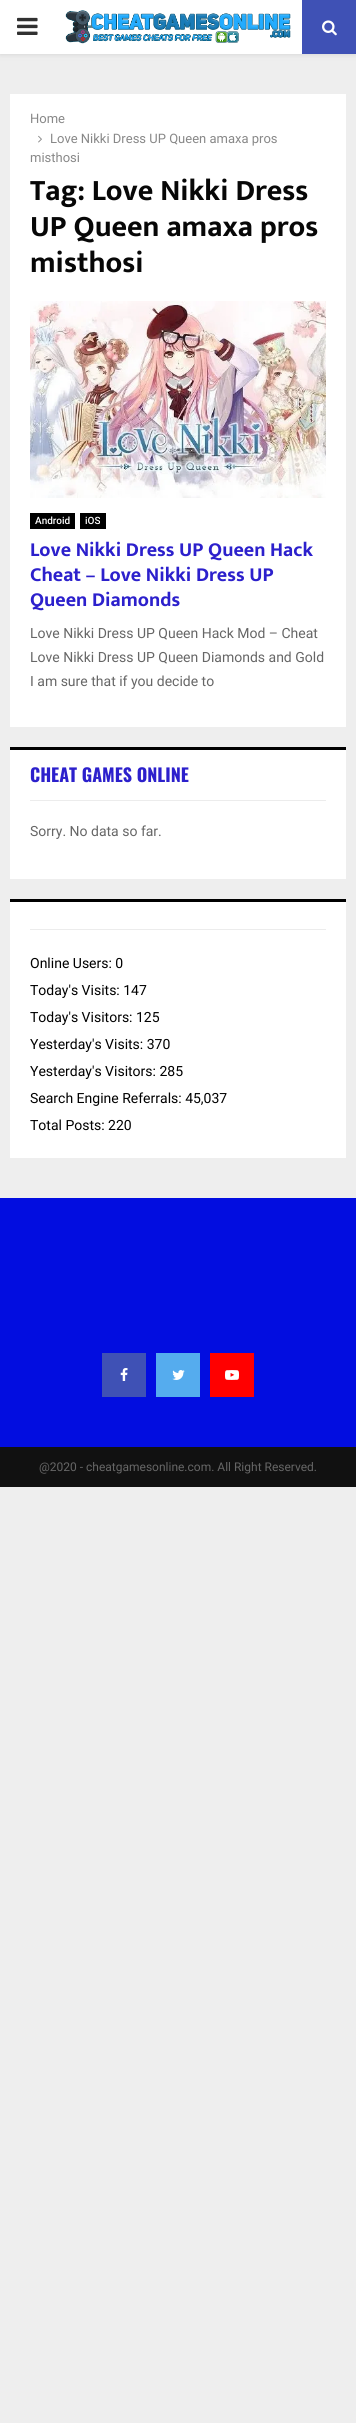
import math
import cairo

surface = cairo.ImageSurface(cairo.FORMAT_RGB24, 356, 2423)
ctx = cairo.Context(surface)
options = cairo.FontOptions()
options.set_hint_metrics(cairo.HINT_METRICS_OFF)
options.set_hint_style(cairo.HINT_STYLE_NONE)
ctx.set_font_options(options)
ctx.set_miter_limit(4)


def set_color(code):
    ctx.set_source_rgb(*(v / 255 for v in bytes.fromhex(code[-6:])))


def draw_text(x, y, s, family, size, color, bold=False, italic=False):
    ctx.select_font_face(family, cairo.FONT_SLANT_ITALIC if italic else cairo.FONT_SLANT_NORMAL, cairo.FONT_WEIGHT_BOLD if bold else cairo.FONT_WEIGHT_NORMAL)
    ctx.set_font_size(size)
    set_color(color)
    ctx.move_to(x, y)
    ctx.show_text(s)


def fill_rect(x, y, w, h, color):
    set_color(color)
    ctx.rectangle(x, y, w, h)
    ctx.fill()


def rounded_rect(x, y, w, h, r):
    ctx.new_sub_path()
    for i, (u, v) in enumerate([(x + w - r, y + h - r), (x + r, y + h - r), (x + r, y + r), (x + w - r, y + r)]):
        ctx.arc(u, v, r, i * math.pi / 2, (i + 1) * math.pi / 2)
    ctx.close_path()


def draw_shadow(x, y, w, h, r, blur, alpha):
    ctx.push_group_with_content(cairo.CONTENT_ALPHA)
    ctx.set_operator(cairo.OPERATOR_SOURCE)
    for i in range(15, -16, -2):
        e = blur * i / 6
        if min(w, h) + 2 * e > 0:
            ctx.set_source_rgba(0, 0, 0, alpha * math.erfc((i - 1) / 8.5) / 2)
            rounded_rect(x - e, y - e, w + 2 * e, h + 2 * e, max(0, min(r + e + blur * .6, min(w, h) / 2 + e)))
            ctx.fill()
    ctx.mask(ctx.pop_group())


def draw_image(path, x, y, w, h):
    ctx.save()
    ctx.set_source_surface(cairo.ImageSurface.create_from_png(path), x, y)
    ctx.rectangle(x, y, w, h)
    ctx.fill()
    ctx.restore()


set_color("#eeeeee")
ctx.paint()
set_color("#bebebe")
draw_shadow(0, 1, 356, 54, 0, 2.5, 0.46)
fill_rect(0, 0, 302, 54, "#ffffff")
draw_image("assets/img1.png", 17, 17, 21, 18)
draw_image("assets/img2.png", 65, 10, 226, 34)
fill_rect(302, 0, 54, 54, "#3f51b5")
draw_image("assets/img3.png", 322, 20, 15, 16)
fill_rect(10, 94, 336, 633, "#ffffff")
draw_text(30, 123, "Home", "Roboto", 13, "#888888")
draw_image("assets/img4.png", 38, 135, 4, 8)
draw_text(50, 143, "Love Nikki Dress UP Queen amaxa pros", "Roboto", 13, "#888888")
draw_text(30, 162, "misthosi", "Roboto", 13, "#888888")
draw_text(30, 200, "Tag: Love Nikki Dress", "Mukta Vaani", 30, "#070707", bold=True)
draw_text(30, 236, "UP Queen amaxa pros", "Mukta Vaani", 30, "#070707", bold=True)
draw_text(30, 272, "misthosi", "Mukta Vaani", 30, "#070707", bold=True)
draw_image("assets/img5.png", 30, 301, 296, 197)
fill_rect(30, 513, 45, 16, "#000000")
draw_text(35, 524, "Android", "Roboto Medium", 10, "#ffffff")
fill_rect(80, 513, 26, 16, "#000000")
draw_text(85, 524, "iOS", "Roboto Medium", 10, "#ffffff")
draw_text(30, 556, "Love Nikki Dress UP Queen Hack", "Mukta Vaani", 20, "#2c20cc", bold=True)
draw_text(30, 581, "Cheat – Love Nikki Dress UP", "Mukta Vaani", 20, "#2c20cc", bold=True)
draw_text(30, 606, "Queen Diamonds", "Mukta Vaani", 20, "#2c20cc", bold=True)
draw_text(30, 638, "Love Nikki Dress UP Queen Hack Mod – Cheat", "Roboto", 14, "#666666")
draw_text(30, 662, "Love Nikki Dress UP Queen Diamonds and Gold", "Roboto", 14, "#666666")
draw_text(30, 686, "I am sure that if you decide to", "Roboto", 14, "#666666")
fill_rect(10, 750, 336, 129, "#ffffff")
fill_rect(30, 800, 296, 1, "#ececec")
fill_rect(10, 747, 336, 3, "#000000")
draw_text(30, 782, "CHEAT GAMES ONLINE", "Oswald", 18, "#2c20cc", bold=True)
draw_text(30, 836, "Sorry. No data so far.", "Roboto", 14, "#666666")
fill_rect(10, 902, 336, 256, "#ffffff")
fill_rect(30, 929, 296, 1, "#ececec")
fill_rect(10, 899, 336, 3, "#000000")
draw_text(30, 968, "Online Users: 0", "Roboto", 14, "#000000")
draw_text(30, 995, "Today's Visits: 147", "Roboto", 14, "#000000")
draw_text(30, 1022, "Today's Visitors: 125", "Roboto", 14, "#000000")
draw_text(30, 1049, "Yesterday's Visits: 370", "Roboto", 14, "#000000")
draw_text(30, 1076, "Yesterday's Visitors: 285", "Roboto", 14, "#000000")
draw_text(30, 1103, "Search Engine Referrals: 45,037", "Roboto", 14, "#000000")
draw_text(30, 1130, "Total Posts: 220", "Roboto", 14, "#000000")
fill_rect(0, 1198, 356, 249, "#020de0")
fill_rect(102, 1353, 44, 44, "#3f51b5")
draw_image("assets/img6.png", 120, 1368, 8, 13)
fill_rect(156, 1353, 44, 44, "#55acee")
draw_image("assets/img7.png", 172, 1370, 13, 10)
fill_rect(210, 1353, 44, 44, "#ff0000")
draw_image("assets/img8.png", 225, 1370, 14, 10)
fill_rect(0, 1447, 356, 40, "#111111")
draw_text(39, 1471, "@2020 - cheatgamesonline.com. All Right Reserved.", "Roboto", 12, "#666666")
surface.write_to_png("output.png")
